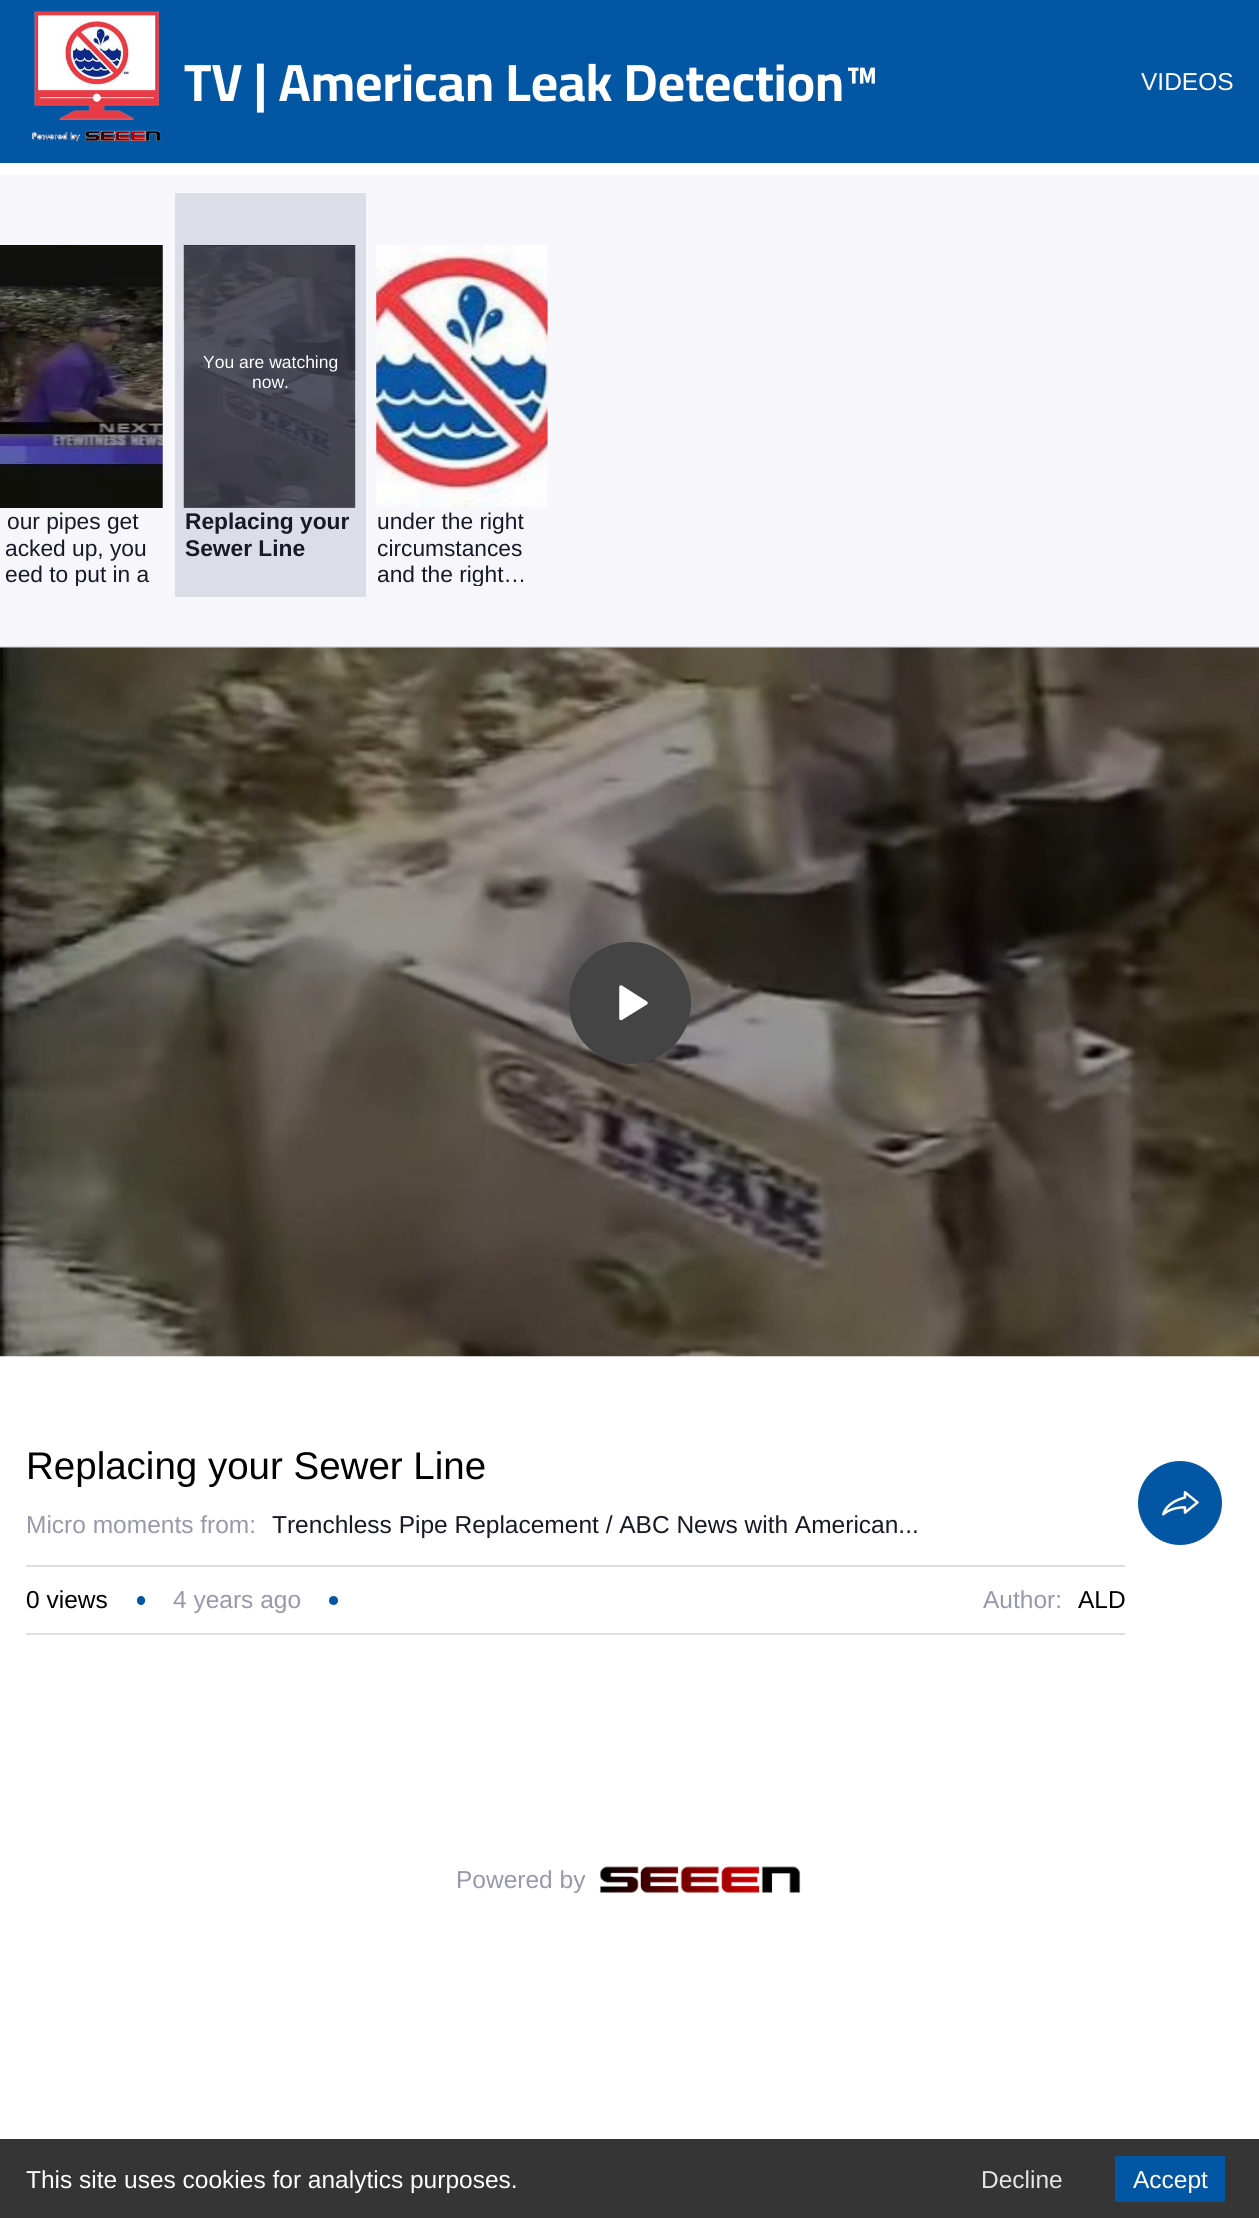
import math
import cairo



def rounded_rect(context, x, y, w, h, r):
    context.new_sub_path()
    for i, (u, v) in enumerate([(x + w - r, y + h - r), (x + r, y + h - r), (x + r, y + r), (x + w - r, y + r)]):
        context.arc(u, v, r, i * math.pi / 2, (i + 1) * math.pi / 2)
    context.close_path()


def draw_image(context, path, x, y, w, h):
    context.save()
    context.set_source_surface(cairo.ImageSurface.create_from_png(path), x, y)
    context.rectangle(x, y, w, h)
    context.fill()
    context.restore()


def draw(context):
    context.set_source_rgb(1, 1, 1)
    context.paint()
    context.set_source_rgb(3 / 255, 86 / 255, 163 / 255)
    context.rectangle(0, 0, 1259, 163)
    context.fill()
    draw_image(context, "images/1.png", 32, 11, 129, 130)
    context.set_source_rgb(246 / 255, 246 / 255, 251 / 255)
    context.rectangle(0, 175, 1259, 471)
    context.fill()
    context.set_source_rgb(219 / 255, 222 / 255, 230 / 255)
    context.rectangle(0, 646, 1259, 2)
    context.fill()
    draw_image(context, "images/2.png", 0, 245, 163, 263)
    context.rectangle(175, 193, 191, 404)
    context.fill()
    context.set_source_rgb(99 / 255, 101 / 255, 117 / 255)
    context.rectangle(184, 507, 171, 1)
    context.fill()
    draw_image(context, "images/3.png", 183, 245, 173, 263)
    draw_image(context, "images/4.png", 376, 245, 172, 263)
    draw_image(context, "images/5.png", 0, 647, 1259, 710)
    context.set_source_rgb(68 / 255, 68 / 255, 68 / 255)
    context.arc(630, 1003, 61, 0, 2 * math.pi)
    context.fill()
    context.set_source_rgb(1, 1, 1)
    context.new_path()
    context.move_to(621, 987)
    context.line_to(646, 1003)
    context.line_to(621, 1018.5)
    context.close_path()
    context.fill_preserve()
    context.set_line_width(3.5)
    context.set_line_cap(cairo.LineCap.ROUND)
    context.set_line_join(cairo.LineJoin.ROUND)
    context.stroke()
    context.set_source_rgb(219 / 255, 222 / 255, 230 / 255)
    context.rectangle(26, 1565, 1099, 2)
    context.fill()
    context.rectangle(26, 1633, 1099, 2)
    context.fill()
    context.set_source_rgb(3 / 255, 86 / 255, 163 / 255)
    rounded_rect(context, 137, 1596, 8, 9, 4)
    context.fill()
    context.arc(333.5, 1600.5, 4.5, 0, 2 * math.pi)
    context.fill()
    context.arc(1180, 1503, 42, 0, 2 * math.pi)
    context.fill()
    draw_image(context, "images/6.png", 1162, 1491, 37, 25)
    draw_image(context, "images/7.png", 599, 1866, 202, 28)
    context.set_source_rgb(53 / 255, 53 / 255, 53 / 255)
    context.rectangle(0, 2139, 1259, 79)
    context.fill()
    context.set_source_rgb(3 / 255, 86 / 255, 163 / 255)
    context.rectangle(1115, 2156, 110, 46)
    context.fill()
    context.select_font_face("Cairo", cairo.FontSlant.NORMAL, cairo.FontWeight.BOLD)
    context.set_font_size(52.5)
    context.set_source_rgb(1, 1, 1)
    context.move_to(184, 101)
    context.show_text("TV | American Leak Detection™")
    context.select_font_face("Liberation Sans")
    context.set_font_size(24.5)
    context.move_to(1141, 90)
    context.show_text("VIDEOS")
    context.set_font_size(22.75)
    context.set_source_rgb(24 / 255, 25 / 255, 39 / 255)
    context.move_to(7, 529)
    context.show_text("our pipes get")
    context.move_to(5, 556)
    context.show_text("acked up, you")
    context.save()
    context.rectangle(0, 508, 163, 78)
    context.clip()
    context.move_to(5, 582)
    context.show_text("eed to put in a")
    context.restore()
    context.set_font_size(17.5)
    context.set_source_rgb(1, 1, 1)
    context.move_to(203, 368)
    context.show_text("You are watching")
    context.move_to(252, 388)
    context.show_text("now.")
    context.select_font_face("Liberation Sans", cairo.FontSlant.NORMAL, cairo.FontWeight.BOLD)
    context.set_font_size(22.75)
    context.set_source_rgb(24 / 255, 25 / 255, 39 / 255)
    context.move_to(185, 529)
    context.show_text("Replacing your")
    context.move_to(185, 556)
    context.show_text("Sewer Line")
    context.select_font_face("Liberation Sans")
    context.move_to(377, 529)
    context.show_text("under the right")
    context.move_to(377, 556)
    context.show_text("circumstances")
    context.save()
    context.rectangle(376, 508, 172, 78)
    context.clip()
    context.move_to(377, 582)
    context.show_text("and the right…")
    context.restore()
    context.set_font_size(38.5)
    context.set_source_rgb(0, 0, 0)
    context.move_to(26, 1479)
    context.show_text("Replacing your Sewer Line")
    context.set_font_size(24.5)
    context.set_source_rgb(151 / 255, 152 / 255, 170 / 255)
    context.move_to(26, 1533)
    context.show_text("Micro moments from:")
    context.set_source_rgb(24 / 255, 25 / 255, 39 / 255)
    context.move_to(272, 1533)
    context.show_text("Trenchless Pipe Replacement / ABC News with American...")
    context.set_source_rgb(0, 0, 0)
    context.move_to(26, 1608)
    context.show_text("0 views")
    context.set_source_rgb(151 / 255, 152 / 255, 170 / 255)
    context.move_to(173, 1608)
    context.show_text("4 years ago")
    context.move_to(983, 1608)
    context.show_text("Author:")
    context.set_source_rgb(0, 0, 0)
    context.move_to(1078, 1608)
    context.show_text("ALD")
    context.set_source_rgb(151 / 255, 152 / 255, 170 / 255)
    context.move_to(456, 1888)
    context.show_text("Powered by")
    context.set_source_rgb(1, 1, 1)
    context.move_to(26, 2188)
    context.show_text("This site uses cookies for analytics purposes.")
    context.set_source_rgb(229 / 255, 229 / 255, 229 / 255)
    context.move_to(981, 2188)
    context.show_text("Decline")
    context.set_source_rgb(1, 1, 1)
    context.move_to(1133, 2188)
    context.show_text("Accept")


surface = cairo.ImageSurface(cairo.Format.RGB24, 1259, 2218)
context = cairo.Context(surface)
options = cairo.FontOptions()
options.set_hint_metrics(cairo.HintMetrics.OFF)
options.set_hint_style(cairo.HintStyle.NONE)
context.set_font_options(options)
context.set_miter_limit(4)
draw(context)
surface.write_to_png("out.png")
